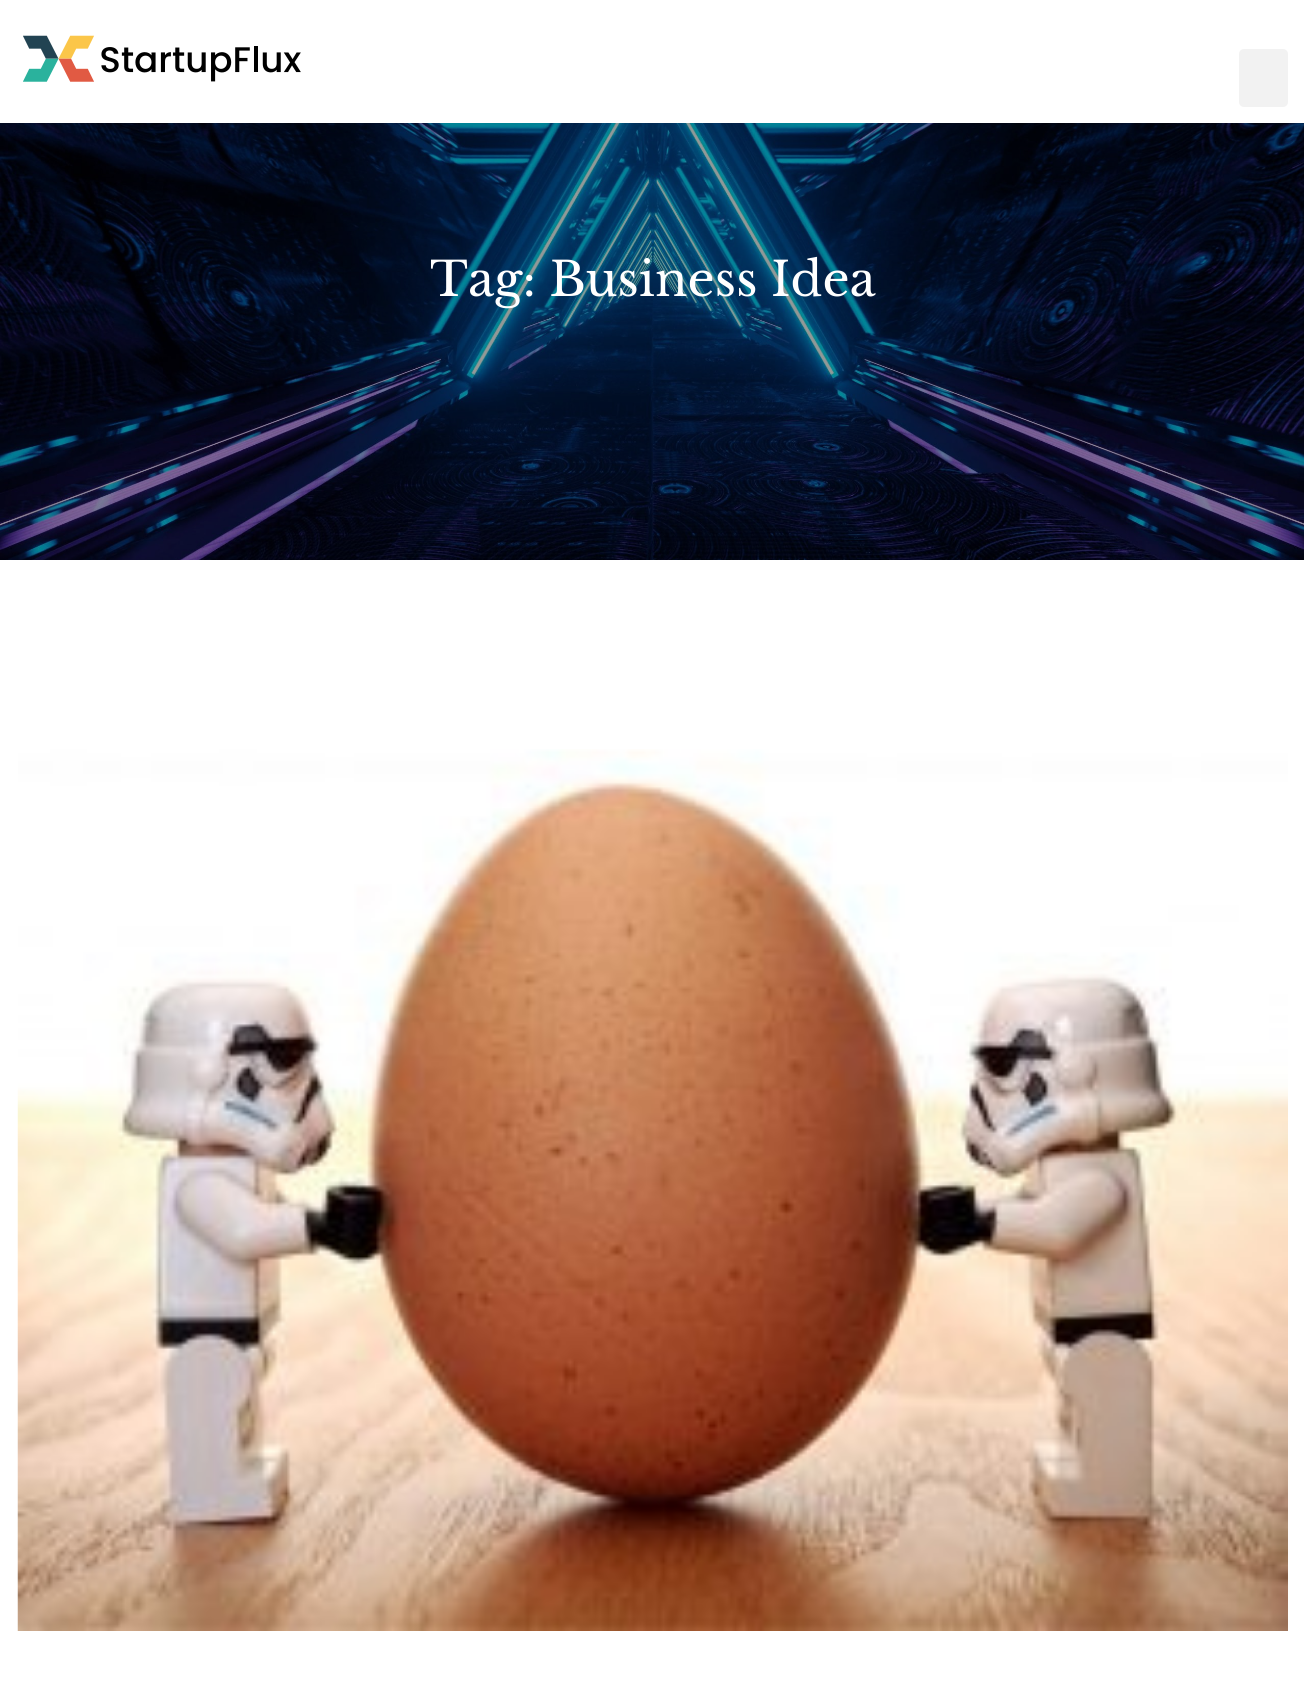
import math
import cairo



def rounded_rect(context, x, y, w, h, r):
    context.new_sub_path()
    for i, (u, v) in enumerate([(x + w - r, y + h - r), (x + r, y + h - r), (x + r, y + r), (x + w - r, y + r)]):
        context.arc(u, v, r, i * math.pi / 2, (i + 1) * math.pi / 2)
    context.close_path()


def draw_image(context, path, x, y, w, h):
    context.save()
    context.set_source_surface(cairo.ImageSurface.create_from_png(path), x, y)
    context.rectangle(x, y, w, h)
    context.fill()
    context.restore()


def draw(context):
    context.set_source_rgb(1, 1, 1)
    context.paint()
    draw_image(context, "images/1.png", 23, 35, 278, 47)
    context.set_source_rgb(242 / 255, 242 / 255, 242 / 255)
    rounded_rect(context, 1239, 49, 49, 58, 5)
    context.fill()
    draw_image(context, "images/2.png", 0, 123, 1304, 437)
    draw_image(context, "images/3.png", 17, 749, 1271, 882)
    context.select_font_face("Libre Baskerville")
    context.set_font_size(47.25)
    context.set_source_rgb(1, 1, 1)
    context.move_to(430, 296)
    context.show_text("Tag: Business Idea")


surface = cairo.ImageSurface(cairo.Format.RGB24, 1304, 1698)
context = cairo.Context(surface)
options = cairo.FontOptions()
options.set_hint_metrics(cairo.HintMetrics.OFF)
options.set_hint_style(cairo.HintStyle.NONE)
context.set_font_options(options)
context.set_miter_limit(4)
draw(context)
surface.write_to_png("out.png")
